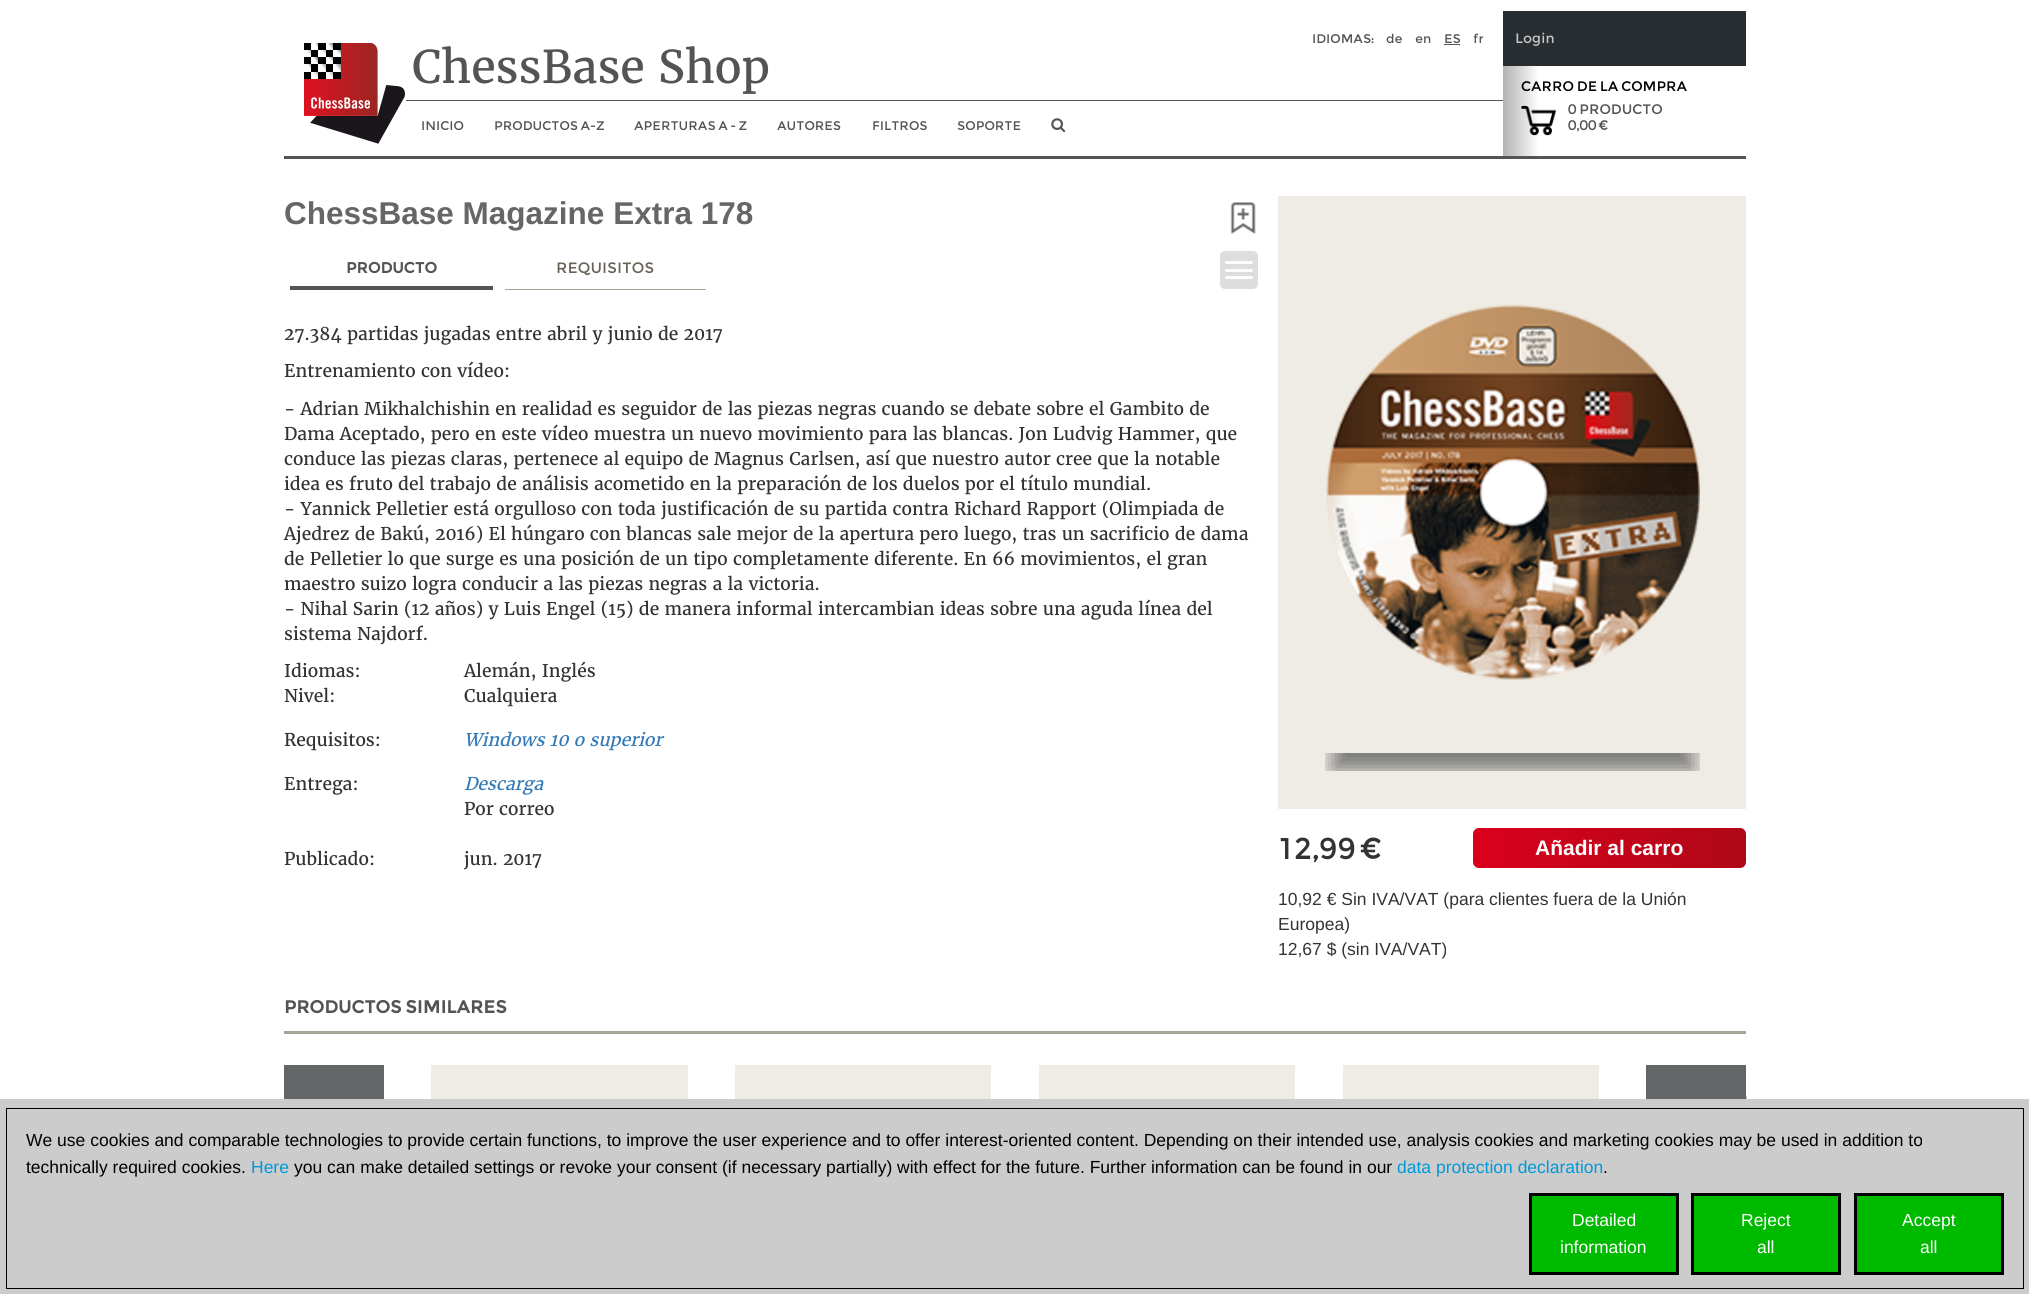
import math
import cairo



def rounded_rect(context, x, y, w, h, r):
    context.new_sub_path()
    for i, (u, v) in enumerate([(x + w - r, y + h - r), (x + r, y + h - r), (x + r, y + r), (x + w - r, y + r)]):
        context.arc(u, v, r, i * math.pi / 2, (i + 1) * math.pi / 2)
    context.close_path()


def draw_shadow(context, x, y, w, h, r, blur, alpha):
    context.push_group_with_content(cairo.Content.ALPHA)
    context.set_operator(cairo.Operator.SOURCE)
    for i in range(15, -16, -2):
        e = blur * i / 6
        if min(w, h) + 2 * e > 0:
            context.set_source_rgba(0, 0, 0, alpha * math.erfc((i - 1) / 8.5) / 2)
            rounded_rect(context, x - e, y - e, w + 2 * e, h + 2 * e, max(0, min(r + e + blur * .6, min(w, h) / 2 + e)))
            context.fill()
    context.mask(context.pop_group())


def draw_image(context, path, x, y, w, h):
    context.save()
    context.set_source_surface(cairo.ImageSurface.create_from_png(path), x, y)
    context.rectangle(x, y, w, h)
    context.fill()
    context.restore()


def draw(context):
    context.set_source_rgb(1, 1, 1)
    context.paint()
    context.set_source_rgb(84 / 255, 84 / 255, 83 / 255)
    context.rectangle(284, 156, 1462, 3)
    context.fill()
    draw_image(context, "images/1.png", 304, 43, 101, 101)
    context.rectangle(406, 100, 1097, 1)
    context.fill()
    context.rectangle(1444, 44, 16, 1)
    context.fill()
    draw_image(context, "images/2.png", 1051, 118, 15, 15)
    context.set_source_rgb(39 / 255, 45 / 255, 49 / 255)
    context.rectangle(1503, 11, 243, 55)
    context.fill()
    gradient = cairo.LinearGradient(1503, 111, 1746, 111)
    gradient.add_color_stop_rgba(0, 178 / 255, 178 / 255, 178 / 255, 1)
    gradient.add_color_stop_rgba(0.15, 1, 1, 1, 1)
    gradient.add_color_stop_rgba(0.85, 1, 1, 1, 1)
    context.set_source(gradient)
    context.rectangle(1503, 66, 35, 90)
    context.fill()
    draw_image(context, "images/3.png", 1521, 105, 36, 31)
    context.set_source_rgb(204 / 255, 204 / 255, 204 / 255)
    context.rectangle(0, 1099, 2029, 195)
    context.fill()
    context.rectangle(6.5, 1108.5, 2017, 180)
    context.set_source_rgb(0, 0, 0)
    context.set_line_width(1)
    context.stroke()
    context.set_source_rgb(0, 186 / 255, 0)
    context.rectangle(1530.5, 1194.5, 147, 79)
    context.fill_preserve()
    context.set_source_rgb(0, 0, 0)
    context.set_line_width(3)
    context.stroke()
    context.set_source_rgb(0, 186 / 255, 0)
    context.rectangle(1692.5, 1194.5, 147, 79)
    context.fill_preserve()
    context.set_source_rgb(0, 0, 0)
    context.stroke()
    context.set_source_rgb(0, 186 / 255, 0)
    context.rectangle(1855.5, 1194.5, 147, 79)
    context.fill_preserve()
    context.set_source_rgb(0, 0, 0)
    context.stroke()
    draw_image(context, "images/4.png", 1230, 202, 26, 32)
    context.set_source_rgb(84 / 255, 84 / 255, 83 / 255)
    context.rectangle(290, 286, 203, 4)
    context.fill()
    context.set_source_rgb(167 / 255, 163 / 255, 150 / 255)
    context.rectangle(505, 289, 201, 1)
    context.fill()
    context.set_source_rgb(221 / 255, 221 / 255, 221 / 255)
    rounded_rect(context, 1219.5, 250.5, 39, 39, 5.5)
    context.fill_preserve()
    context.set_source_rgb(1, 1, 1)
    context.set_line_width(1)
    context.stroke()
    rounded_rect(context, 1225, 261, 28, 3, 1.5)
    context.fill()
    rounded_rect(context, 1225, 269, 28, 3, 1.5)
    context.fill()
    rounded_rect(context, 1225, 276, 28, 3, 1.5)
    context.fill()
    context.set_source_rgb(239 / 255, 236 / 255, 229 / 255)
    context.rectangle(1278, 196, 468, 613)
    context.fill()
    context.save()
    context.rectangle(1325, 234, 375, 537)
    context.clip()
    context.set_fill_rule(cairo.FillRule.EVEN_ODD)
    context.new_path()
    context.move_to(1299, 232)
    context.line_to(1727, 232)
    context.line_to(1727, 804)
    context.line_to(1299, 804)
    context.close_path()
    context.move_to(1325, 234)
    context.line_to(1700, 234)
    context.line_to(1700, 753)
    context.line_to(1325, 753)
    context.close_path()
    context.clip()
    context.set_source_rgb(119 / 255, 119 / 255, 119 / 255)
    draw_shadow(context, 1333, 266, 360, 504, 0, 11, 1)
    context.restore()
    draw_image(context, "images/5.png", 1326, 304, 374, 376)
    gradient = cairo.LinearGradient(1473, 848, 1746, 848)
    gradient.add_color_stop_rgba(0, 218 / 255, 0, 28 / 255, 1)
    gradient.add_color_stop_rgba(1, 175 / 255, 8 / 255, 24 / 255, 1)
    context.set_source(gradient)
    rounded_rect(context, 1473, 828, 273, 40, 6)
    context.fill()
    context.set_source_rgb(167 / 255, 163 / 255, 150 / 255)
    context.rectangle(284, 1031, 1462, 3)
    context.fill()
    context.set_source_rgb(99 / 255, 102 / 255, 103 / 255)
    context.rectangle(284, 1065, 100, 34)
    context.fill()
    context.set_source_rgb(239 / 255, 236 / 255, 229 / 255)
    context.rectangle(431, 1065, 257, 34)
    context.fill()
    context.rectangle(735, 1065, 256, 34)
    context.fill()
    context.rectangle(1039, 1065, 256, 34)
    context.fill()
    context.rectangle(1343, 1065, 256, 34)
    context.fill()
    context.set_source_rgb(99 / 255, 102 / 255, 103 / 255)
    context.rectangle(1646, 1065, 100, 34)
    context.fill()
    draw_image(context, "images/6.png", 1746, 1096, 1, 3)
    context.select_font_face("Montserrat")
    context.set_font_size(12.5)
    context.set_source_rgb(84 / 255, 84 / 255, 83 / 255)
    context.move_to(1312, 43)
    context.show_text("IDIOMAS:")
    context.move_to(1386, 43)
    context.show_text("de")
    context.move_to(1415, 43)
    context.show_text("en")
    context.move_to(1444, 43)
    context.show_text("ES")
    context.move_to(1473, 43)
    context.show_text("fr")
    context.select_font_face("Merriweather")
    context.set_font_size(45)
    context.move_to(412, 83)
    context.show_text("ChessBase Shop")
    context.select_font_face("Montserrat")
    context.set_font_size(12.5)
    context.move_to(421, 130)
    context.show_text("INICIO")
    context.move_to(494, 130)
    context.show_text("PRODUCTOS A-Z")
    context.move_to(634, 130)
    context.show_text("APERTURAS A - Z")
    context.move_to(777, 130)
    context.show_text("AUTORES")
    context.move_to(872, 130)
    context.show_text("FILTROS")
    context.move_to(957, 130)
    context.show_text("SOPORTE")
    context.set_font_size(13.75)
    context.set_source_rgb(198 / 255, 199 / 255, 200 / 255)
    context.move_to(1515, 43)
    context.show_text("Login")
    context.set_source_rgb(0, 0, 0)
    context.move_to(1521, 91)
    context.show_text("CARRO DE LA COMPRA")
    context.set_source_rgb(84 / 255, 84 / 255, 83 / 255)
    context.move_to(1568, 114)
    context.show_text("0 PRODUCTO")
    context.move_to(1568, 130)
    context.show_text("0,00 €")
    context.select_font_face("Liberation Sans")
    context.set_font_size(17.5)
    context.set_source_rgb(0, 0, 0)
    context.move_to(26, 1146)
    context.show_text("We use cookies and comparable technologies to provide certain functions, to improve the user experience and to offer interest-oriented content. Depending on their intended use, analysis cookies and marketing cookies may be used in addition to")
    context.move_to(26, 1173)
    context.show_text("technically required cookies.")
    context.set_source_rgb(0, 153 / 255, 218 / 255)
    context.move_to(251, 1173)
    context.show_text("Here")
    context.set_source_rgb(0, 0, 0)
    context.move_to(294, 1173)
    context.show_text("you can make detailed settings or revoke your consent (if necessary partially) with effect for the future. Further information can be found in our")
    context.set_source_rgb(0, 153 / 255, 218 / 255)
    context.move_to(1397, 1173)
    context.show_text("data protection declaration")
    context.set_source_rgb(0, 0, 0)
    context.move_to(1603, 1173)
    context.show_text(".")
    context.set_source_rgb(1, 1, 1)
    context.move_to(1572, 1226)
    context.show_text("Detailed")
    context.move_to(1560, 1253)
    context.show_text("information")
    context.move_to(1741, 1226)
    context.show_text("Reject")
    context.move_to(1757, 1253)
    context.show_text("all")
    context.move_to(1902, 1226)
    context.show_text("Accept")
    context.move_to(1920, 1253)
    context.show_text("all")
    context.select_font_face("Liberation Sans", cairo.FontSlant.NORMAL, cairo.FontWeight.BOLD)
    context.set_font_size(31.5)
    context.set_source_rgb(102 / 255, 102 / 255, 102 / 255)
    context.move_to(284, 224)
    context.show_text("ChessBase Magazine Extra 178")
    context.select_font_face("Montserrat", cairo.FontSlant.NORMAL, cairo.FontWeight.BOLD)
    context.set_font_size(15)
    context.set_source_rgb(84 / 255, 84 / 255, 83 / 255)
    context.move_to(346, 273)
    context.show_text("PRODUCTO")
    context.select_font_face("Montserrat")
    context.set_source_rgb(103 / 255, 99 / 255, 86 / 255)
    context.move_to(556, 273)
    context.show_text("REQUISITOS")
    context.select_font_face("Merriweather")
    context.set_font_size(17.5)
    context.set_source_rgb(51 / 255, 51 / 255, 51 / 255)
    context.move_to(284, 340)
    context.show_text("27.384 partidas jugadas entre abril y junio de 2017")
    context.move_to(284, 377)
    context.show_text("Entrenamiento con vídeo:")
    context.move_to(284, 415)
    context.show_text("- Adrian Mikhalchishin en realidad es seguidor de las piezas negras cuando se debate sobre el Gambito de")
    context.move_to(284, 440)
    context.show_text("Dama Aceptado, pero en este vídeo muestra un nuevo movimiento para las blancas. Jon Ludvig Hammer, que")
    context.move_to(284, 465)
    context.show_text("conduce las piezas claras, pertenece al equipo de Magnus Carlsen, así que nuestro autor cree que la notable")
    context.move_to(284, 490)
    context.show_text("idea es fruto del trabajo de análisis acometido en la preparación de los duelos por el título mundial.")
    context.move_to(284, 515)
    context.show_text("- Yannick Pelletier está orgulloso con toda justificación de su partida contra Richard Rapport (Olimpiada de")
    context.move_to(284, 540)
    context.show_text("Ajedrez de Bakú, 2016) El húngaro con blancas sale mejor de la apertura pero luego, tras un sacrificio de dama")
    context.move_to(284, 565)
    context.show_text("de Pelletier lo que surge es una posición de un tipo completamente diferente. En 66 movimientos, el gran")
    context.move_to(284, 590)
    context.show_text("maestro suizo logra conducir a las piezas negras a la victoria.")
    context.move_to(284, 615)
    context.show_text("- Nihal Sarin (12 años) y Luis Engel (15) de manera informal intercambian ideas sobre una aguda línea del")
    context.move_to(284, 640)
    context.show_text("sistema Najdorf.")
    context.move_to(284, 677)
    context.show_text("Idiomas:")
    context.move_to(464, 677)
    context.show_text("Alemán, Inglés")
    context.move_to(284, 702)
    context.show_text("Nivel:")
    context.move_to(464, 702)
    context.show_text("Cualquiera")
    context.move_to(284, 746)
    context.show_text("Requisitos:")
    context.select_font_face("Merriweather", cairo.FontSlant.ITALIC)
    context.set_source_rgb(51 / 255, 122 / 255, 183 / 255)
    context.move_to(464, 746)
    context.show_text("Windows 10 o superior")
    context.select_font_face("Merriweather")
    context.set_source_rgb(51 / 255, 51 / 255, 51 / 255)
    context.move_to(284, 790)
    context.show_text("Entrega:")
    context.select_font_face("Merriweather", cairo.FontSlant.ITALIC)
    context.set_source_rgb(51 / 255, 122 / 255, 183 / 255)
    context.move_to(464, 790)
    context.show_text("Descarga")
    context.select_font_face("Merriweather")
    context.set_source_rgb(51 / 255, 51 / 255, 51 / 255)
    context.move_to(464, 815)
    context.show_text("Por correo")
    context.move_to(284, 865)
    context.show_text("Publicado:")
    context.move_to(464, 865)
    context.show_text("jun. 2017")
    context.select_font_face("Montserrat")
    context.set_font_size(30)
    context.move_to(1278, 859)
    context.show_text("12,99 €")
    context.select_font_face("Liberation Sans", cairo.FontSlant.NORMAL, cairo.FontWeight.BOLD)
    context.set_font_size(21)
    context.set_source_rgb(1, 1, 1)
    context.move_to(1535, 855)
    context.show_text("Añadir al carro")
    context.select_font_face("Liberation Sans")
    context.set_font_size(17.5)
    context.set_source_rgb(51 / 255, 51 / 255, 51 / 255)
    context.move_to(1278, 905)
    context.show_text("10,92 € Sin IVA/VAT (para clientes fuera de la Unión")
    context.move_to(1278, 930)
    context.show_text("Europea)")
    context.move_to(1278, 955)
    context.show_text("12,67 $ (sin IVA/VAT)")
    context.select_font_face("Montserrat", cairo.FontSlant.NORMAL, cairo.FontWeight.BOLD)
    context.set_source_rgb(84 / 255, 84 / 255, 83 / 255)
    context.move_to(284, 1013)
    context.show_text("PRODUCTOS SIMILARES")


surface = cairo.ImageSurface(cairo.Format.RGB24, 2029, 1294)
context = cairo.Context(surface)
options = cairo.FontOptions()
options.set_hint_metrics(cairo.HintMetrics.OFF)
options.set_hint_style(cairo.HintStyle.NONE)
context.set_font_options(options)
context.set_miter_limit(4)
draw(context)
surface.write_to_png("out.png")
